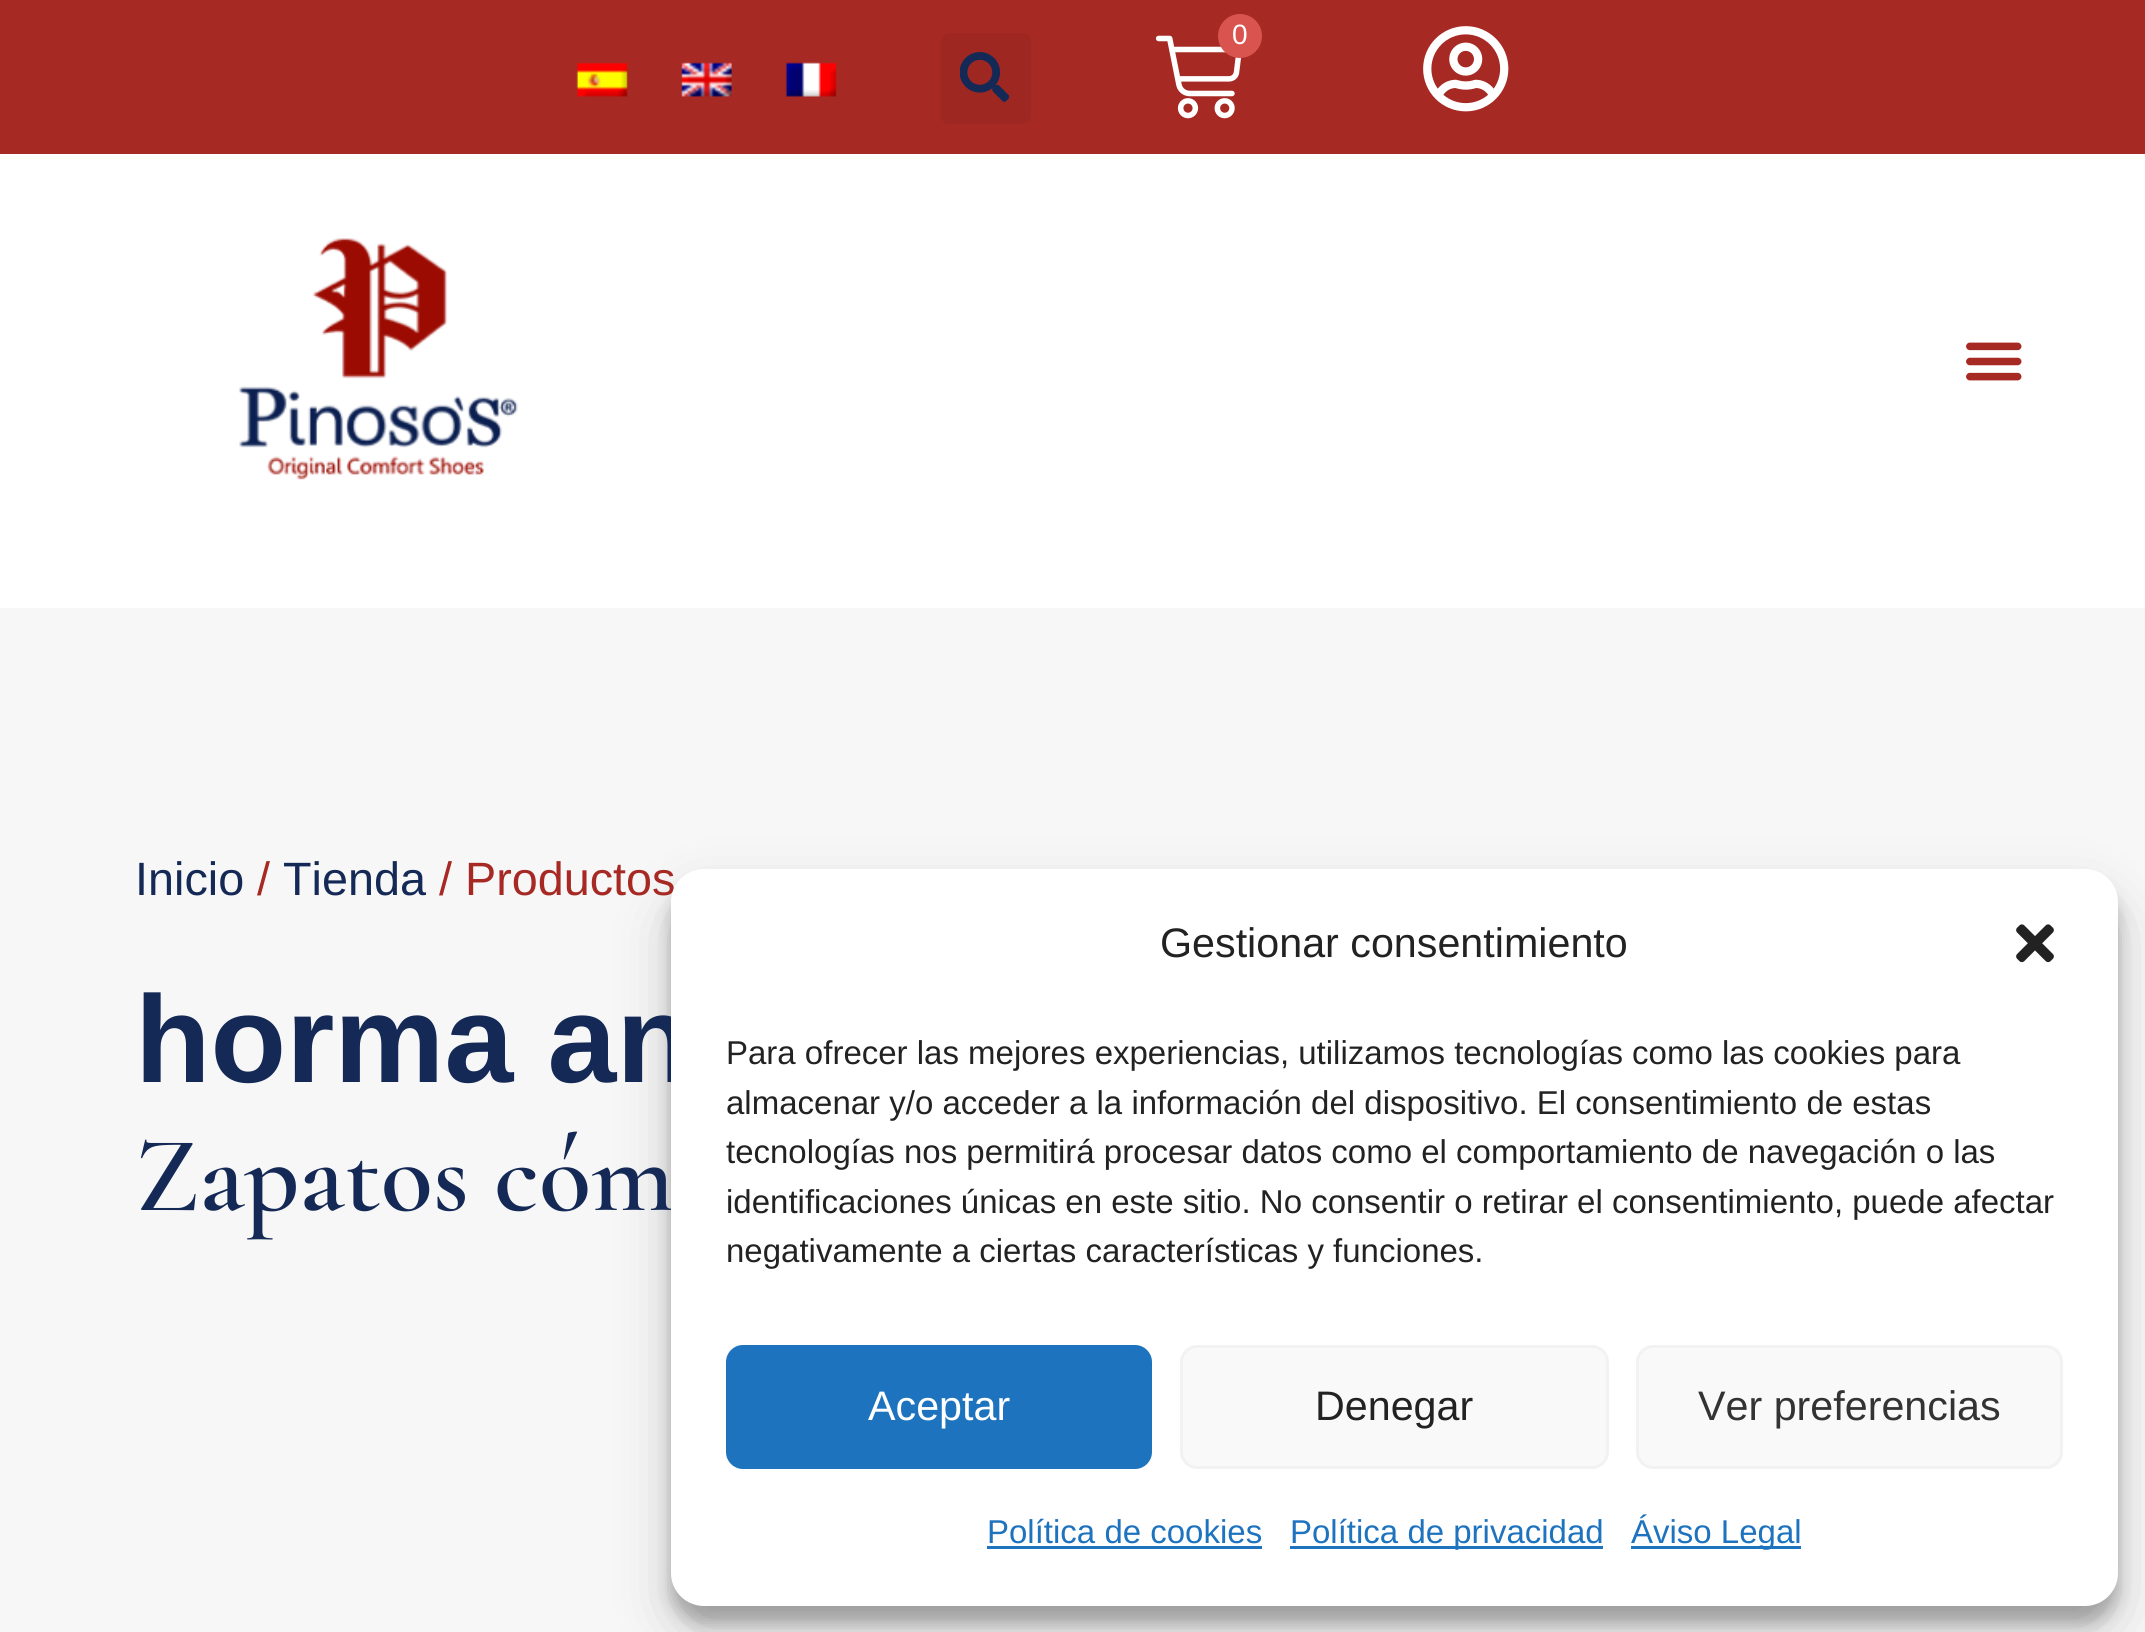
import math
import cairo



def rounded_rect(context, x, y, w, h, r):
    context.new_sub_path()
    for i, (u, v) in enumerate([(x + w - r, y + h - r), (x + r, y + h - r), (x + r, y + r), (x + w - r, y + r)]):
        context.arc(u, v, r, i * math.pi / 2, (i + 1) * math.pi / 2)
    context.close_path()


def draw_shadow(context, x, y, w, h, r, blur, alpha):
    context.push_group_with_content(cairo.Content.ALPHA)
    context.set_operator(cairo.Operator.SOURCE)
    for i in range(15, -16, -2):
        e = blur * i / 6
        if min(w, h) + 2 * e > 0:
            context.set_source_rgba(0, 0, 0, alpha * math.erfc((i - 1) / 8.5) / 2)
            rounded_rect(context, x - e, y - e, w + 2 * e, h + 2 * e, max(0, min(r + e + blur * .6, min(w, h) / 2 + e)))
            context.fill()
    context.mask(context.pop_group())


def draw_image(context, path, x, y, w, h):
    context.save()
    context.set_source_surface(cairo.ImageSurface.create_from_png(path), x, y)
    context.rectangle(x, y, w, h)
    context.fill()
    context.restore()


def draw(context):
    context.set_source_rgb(1, 1, 1)
    context.paint()
    context.set_source_rgb(167 / 255, 41 / 255, 36 / 255)
    context.rectangle(0, 0, 2145, 154)
    context.fill()
    draw_image(context, "images/1.png", 576, 62, 52, 35)
    draw_image(context, "images/2.png", 681, 62, 51, 35)
    draw_image(context, "images/3.png", 785, 62, 52, 35)
    context.set_source_rgb(159 / 255, 39 / 255, 34 / 255)
    rounded_rect(context, 941, 33, 90, 91, 8)
    context.fill()
    draw_image(context, "images/4.png", 960, 52, 49, 50)
    draw_image(context, "images/5.png", 1155, 35, 87, 84)
    context.set_source_rgb(217 / 255, 83 / 255, 79 / 255)
    context.arc(1240, 36, 22, 0, 2 * math.pi)
    context.fill()
    draw_image(context, "images/6.png", 1423, 26, 86, 86)
    draw_image(context, "images/7.png", 239, 238, 279, 242)
    draw_image(context, "images/8.png", 1966, 342, 56, 39)
    context.set_source_rgb(247 / 255, 247 / 255, 247 / 255)
    context.rectangle(0, 608, 2145, 1024)
    context.fill()
    context.set_source_rgb(0, 0, 0)
    draw_shadow(context, 671, 886, 1447, 737, 33, 8, 0.23)
    draw_shadow(context, 671, 897, 1447, 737, 33, 27.5, 0.19)
    context.select_font_face("Liberation Sans")
    context.set_font_size(28)
    context.set_source_rgb(1, 1, 1)
    context.move_to(1232, 44)
    context.show_text("0")
    context.set_font_size(46.75)
    context.set_source_rgb(21 / 255, 41 / 255, 86 / 255)
    context.move_to(135, 895)
    context.show_text("Inicio")
    context.set_source_rgb(167 / 255, 41 / 255, 36 / 255)
    context.move_to(257, 895)
    context.show_text("/")
    context.set_source_rgb(21 / 255, 41 / 255, 86 / 255)
    context.move_to(283, 895)
    context.show_text("Tienda")
    context.set_source_rgb(167 / 255, 41 / 255, 36 / 255)
    context.move_to(439, 895)
    context.show_text("/ Productos")
    context.select_font_face("Liberation Sans", cairo.FontSlant.NORMAL, cairo.FontWeight.BOLD)
    context.set_font_size(123.75)
    context.set_source_rgb(21 / 255, 41 / 255, 86 / 255)
    context.move_to(135, 1082)
    context.show_text("horma an")
    context.select_font_face("Cormorant Garamond SemiBold")
    context.set_font_size(107.25)
    context.move_to(135, 1210)
    context.show_text("Zapatos cóm")
    context.set_source_rgb(1, 1, 1)
    rounded_rect(context, 671, 869, 1447, 737, 33)
    context.fill()
    context.select_font_face("Liberation Sans")
    context.set_font_size(41.25)
    context.set_source_rgb(34 / 255, 34 / 255, 34 / 255)
    context.move_to(1160, 957)
    context.show_text("Gestionar consentimiento")
    draw_image(context, "images/9.png", 2016, 924, 38, 39)
    context.set_font_size(33)
    context.move_to(726, 1064)
    context.show_text("Para ofrecer las mejores experiencias, utilizamos tecnologías como las cookies para")
    context.move_to(726, 1114)
    context.show_text("almacenar y/o acceder a la información del dispositivo. El consentimiento de estas")
    context.move_to(726, 1163)
    context.show_text("tecnologías nos permitirá procesar datos como el comportamiento de navegación o las")
    context.move_to(726, 1213)
    context.show_text("identificaciones únicas en este sitio. No consentir o retirar el consentimiento, puede afectar")
    context.move_to(726, 1262)
    context.show_text("negativamente a ciertas características y funciones.")
    context.set_source_rgb(30 / 255, 115 / 255, 190 / 255)
    rounded_rect(context, 727.5, 1346.5, 423, 121, 15.5)
    context.fill_preserve()
    context.set_line_width(3)
    context.stroke()
    context.set_font_size(41.25)
    context.set_source_rgb(1, 1, 1)
    context.move_to(868, 1420)
    context.show_text("Aceptar")
    context.set_source_rgb(249 / 255, 249 / 255, 249 / 255)
    rounded_rect(context, 1181.5, 1346.5, 426, 121, 15.5)
    context.fill_preserve()
    context.set_source_rgb(242 / 255, 242 / 255, 242 / 255)
    context.stroke()
    context.set_source_rgb(34 / 255, 34 / 255, 34 / 255)
    context.move_to(1315, 1420)
    context.show_text("Denegar")
    context.set_source_rgb(249 / 255, 249 / 255, 249 / 255)
    rounded_rect(context, 1637.5, 1346.5, 424, 121, 15.5)
    context.fill_preserve()
    context.set_source_rgb(242 / 255, 242 / 255, 242 / 255)
    context.stroke()
    context.set_source_rgb(51 / 255, 51 / 255, 51 / 255)
    context.move_to(1698, 1420)
    context.show_text("Ver preferencias")
    context.set_font_size(33)
    context.set_source_rgb(30 / 255, 115 / 255, 190 / 255)
    context.move_to(987, 1543)
    context.show_text("Política de cookies")
    context.rectangle(987, 1546, 275, 3)
    context.fill()
    context.rectangle(1290, 1546, 313, 3)
    context.fill()
    context.move_to(1290, 1543)
    context.show_text("Política de privacidad")
    context.rectangle(1631, 1546, 170, 3)
    context.fill()
    context.move_to(1631, 1543)
    context.show_text("Áviso Legal")


surface = cairo.ImageSurface(cairo.Format.RGB24, 2145, 1632)
context = cairo.Context(surface)
options = cairo.FontOptions()
options.set_hint_metrics(cairo.HintMetrics.OFF)
options.set_hint_style(cairo.HintStyle.NONE)
context.set_font_options(options)
context.set_miter_limit(4)
draw(context)
surface.write_to_png("out.png")
